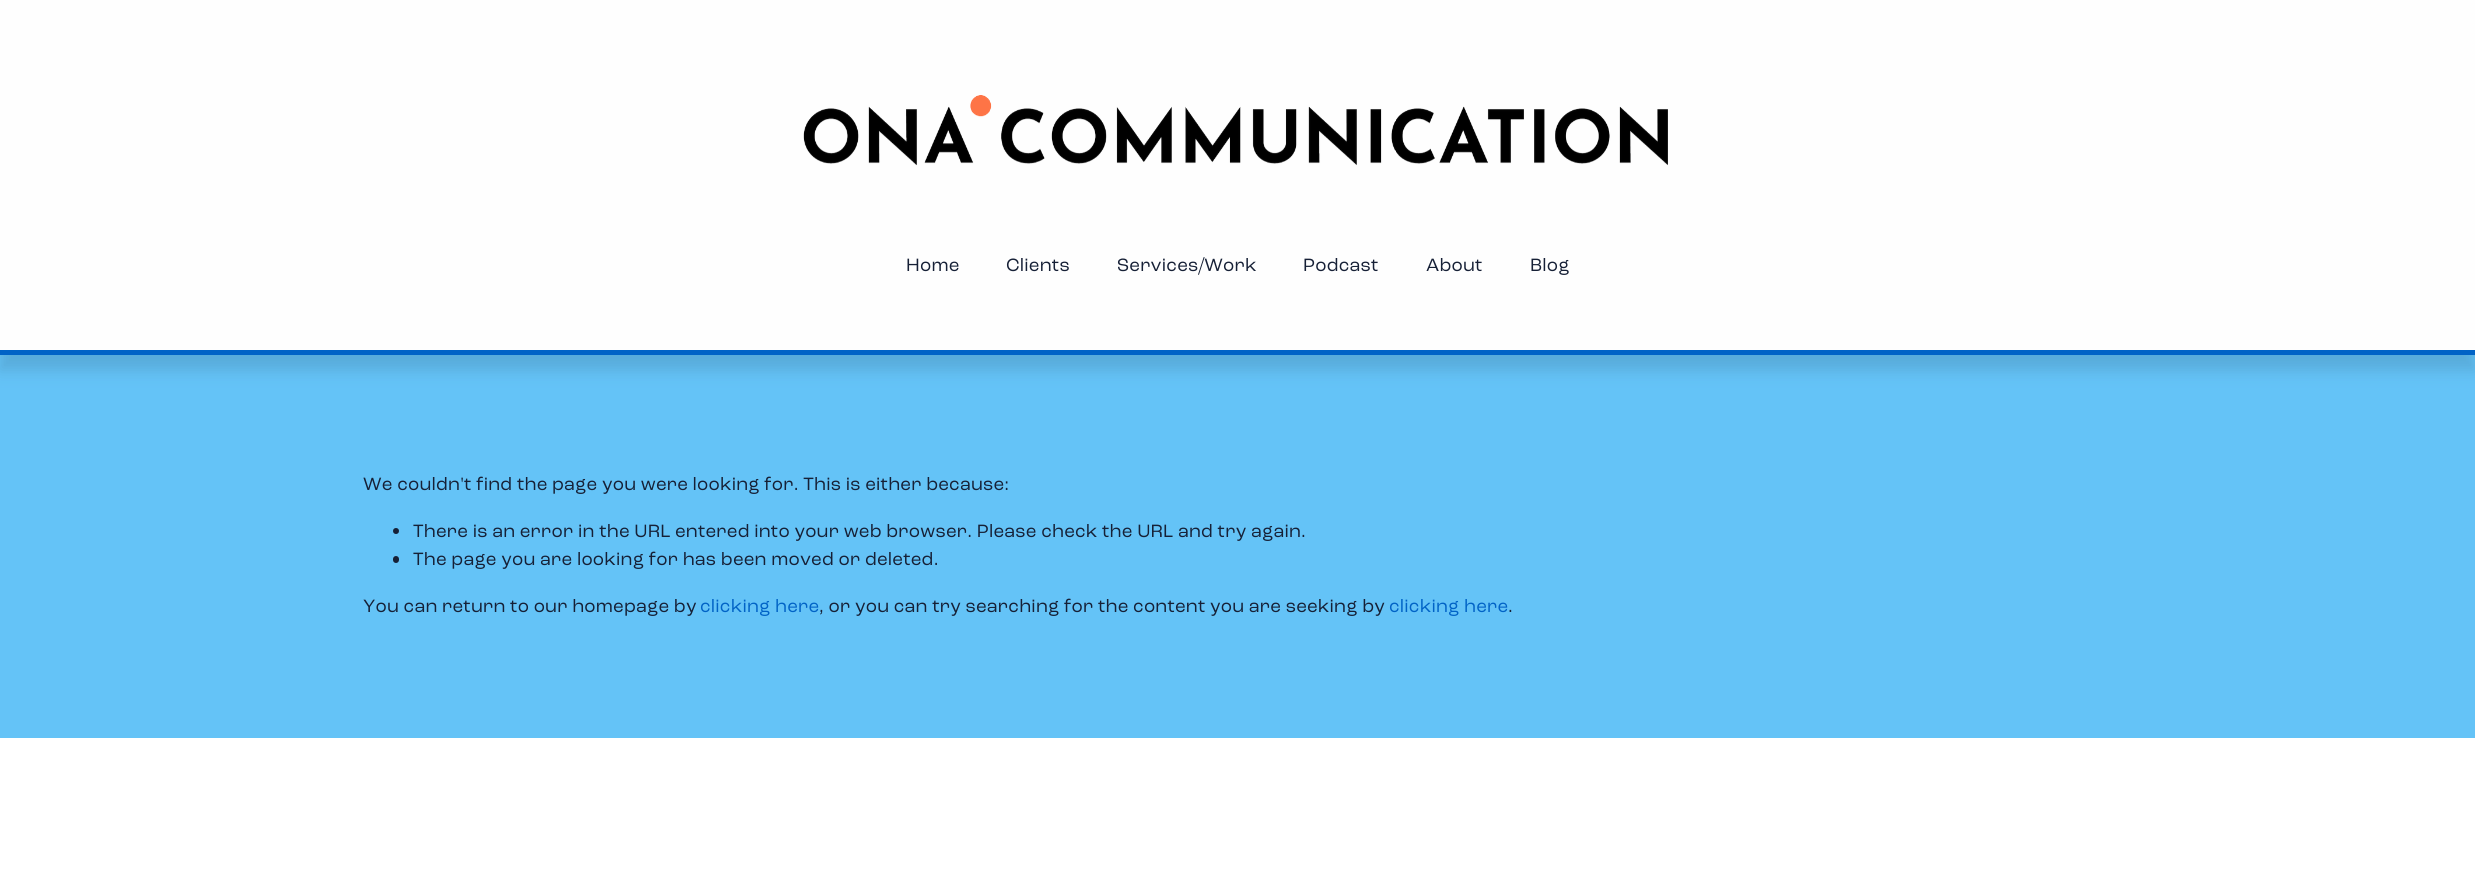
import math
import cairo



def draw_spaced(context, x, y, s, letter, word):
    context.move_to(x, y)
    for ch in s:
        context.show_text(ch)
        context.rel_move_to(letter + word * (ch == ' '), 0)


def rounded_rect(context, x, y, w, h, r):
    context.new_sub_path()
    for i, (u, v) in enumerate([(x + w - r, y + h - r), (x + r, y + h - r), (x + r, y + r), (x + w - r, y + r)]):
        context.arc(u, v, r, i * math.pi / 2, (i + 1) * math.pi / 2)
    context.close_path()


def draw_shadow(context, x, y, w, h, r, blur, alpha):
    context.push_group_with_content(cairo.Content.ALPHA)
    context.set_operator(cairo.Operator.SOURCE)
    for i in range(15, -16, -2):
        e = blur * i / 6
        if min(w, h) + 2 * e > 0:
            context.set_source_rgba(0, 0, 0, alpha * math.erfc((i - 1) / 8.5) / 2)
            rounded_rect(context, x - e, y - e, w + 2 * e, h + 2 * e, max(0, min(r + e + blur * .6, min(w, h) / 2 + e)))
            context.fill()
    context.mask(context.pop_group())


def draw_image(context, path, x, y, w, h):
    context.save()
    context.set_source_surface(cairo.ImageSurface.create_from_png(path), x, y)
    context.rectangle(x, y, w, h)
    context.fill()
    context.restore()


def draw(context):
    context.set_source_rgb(100 / 255, 195 / 255, 247 / 255)
    context.paint()
    context.set_source_rgb(88 / 255, 171 / 255, 218 / 255)
    draw_shadow(context, 0, 15, 2475, 355, 0, 7.5, 1)
    context.set_source_rgb(254 / 255, 254 / 255, 254 / 255)
    context.rectangle(0, 0, 2475, 350)
    context.fill()
    draw_image(context, "images/1.png", 803, 95, 865, 71)
    context.set_source_rgb(1 / 255, 99 / 255, 198 / 255)
    context.rectangle(0, 350, 2475, 5)
    context.fill()
    context.set_source_rgb(22 / 255, 32 / 255, 54 / 255)
    context.arc(396, 531, 3, 0, 2 * math.pi)
    context.fill()
    rounded_rect(context, 393, 556, 6, 7, 3)
    context.fill()
    context.set_source_rgb(1, 1, 1)
    context.rectangle(0, 738, 2475, 140)
    context.fill()
    context.select_font_face("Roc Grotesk")
    context.set_font_size(18.75)
    context.set_source_rgb(22 / 255, 32 / 255, 54 / 255)
    draw_spaced(context, 906, 271, "Home", 0.2, 0)
    draw_spaced(context, 1006, 271, "Clients", 0.2, 0)
    draw_spaced(context, 1117, 271, "Services/Work", 0.2, 0)
    draw_spaced(context, 1303, 271, "Podcast", 0.2, 0)
    draw_spaced(context, 1426, 271, "About", 0.2, 0)
    draw_spaced(context, 1530, 271, "Blog", 0.2, 0)
    draw_spaced(context, 363, 490, "We couldn't find the page you were looking for. This is either because:", 0.2, 0)
    draw_spaced(context, 413, 537, "There is an error in the URL entered into your web browser. Please check the URL and try again.", 0.2, 0)
    draw_spaced(context, 413, 565, "The page you are looking for has been moved or deleted.", 0.2, 0)
    draw_spaced(context, 363, 612, "You can return to our homepage by", 0.2, 0)
    context.set_source_rgb(1 / 255, 99 / 255, 198 / 255)
    draw_spaced(context, 700, 612, "clicking here", 0.2, 0)
    context.set_source_rgb(22 / 255, 32 / 255, 54 / 255)
    draw_spaced(context, 819, 612, ", or you can try searching for the content you are seeking by", 0.2, 0)
    context.set_source_rgb(1 / 255, 99 / 255, 198 / 255)
    draw_spaced(context, 1389, 612, "clicking here", 0.2, 0)
    context.set_source_rgb(22 / 255, 32 / 255, 54 / 255)
    draw_spaced(context, 1508, 612, ".", 0.2, 0)


surface = cairo.ImageSurface(cairo.Format.RGB24, 2475, 878)
context = cairo.Context(surface)
options = cairo.FontOptions()
options.set_hint_metrics(cairo.HintMetrics.OFF)
options.set_hint_style(cairo.HintStyle.NONE)
context.set_font_options(options)
context.set_miter_limit(4)
draw(context)
surface.write_to_png("out.png")
